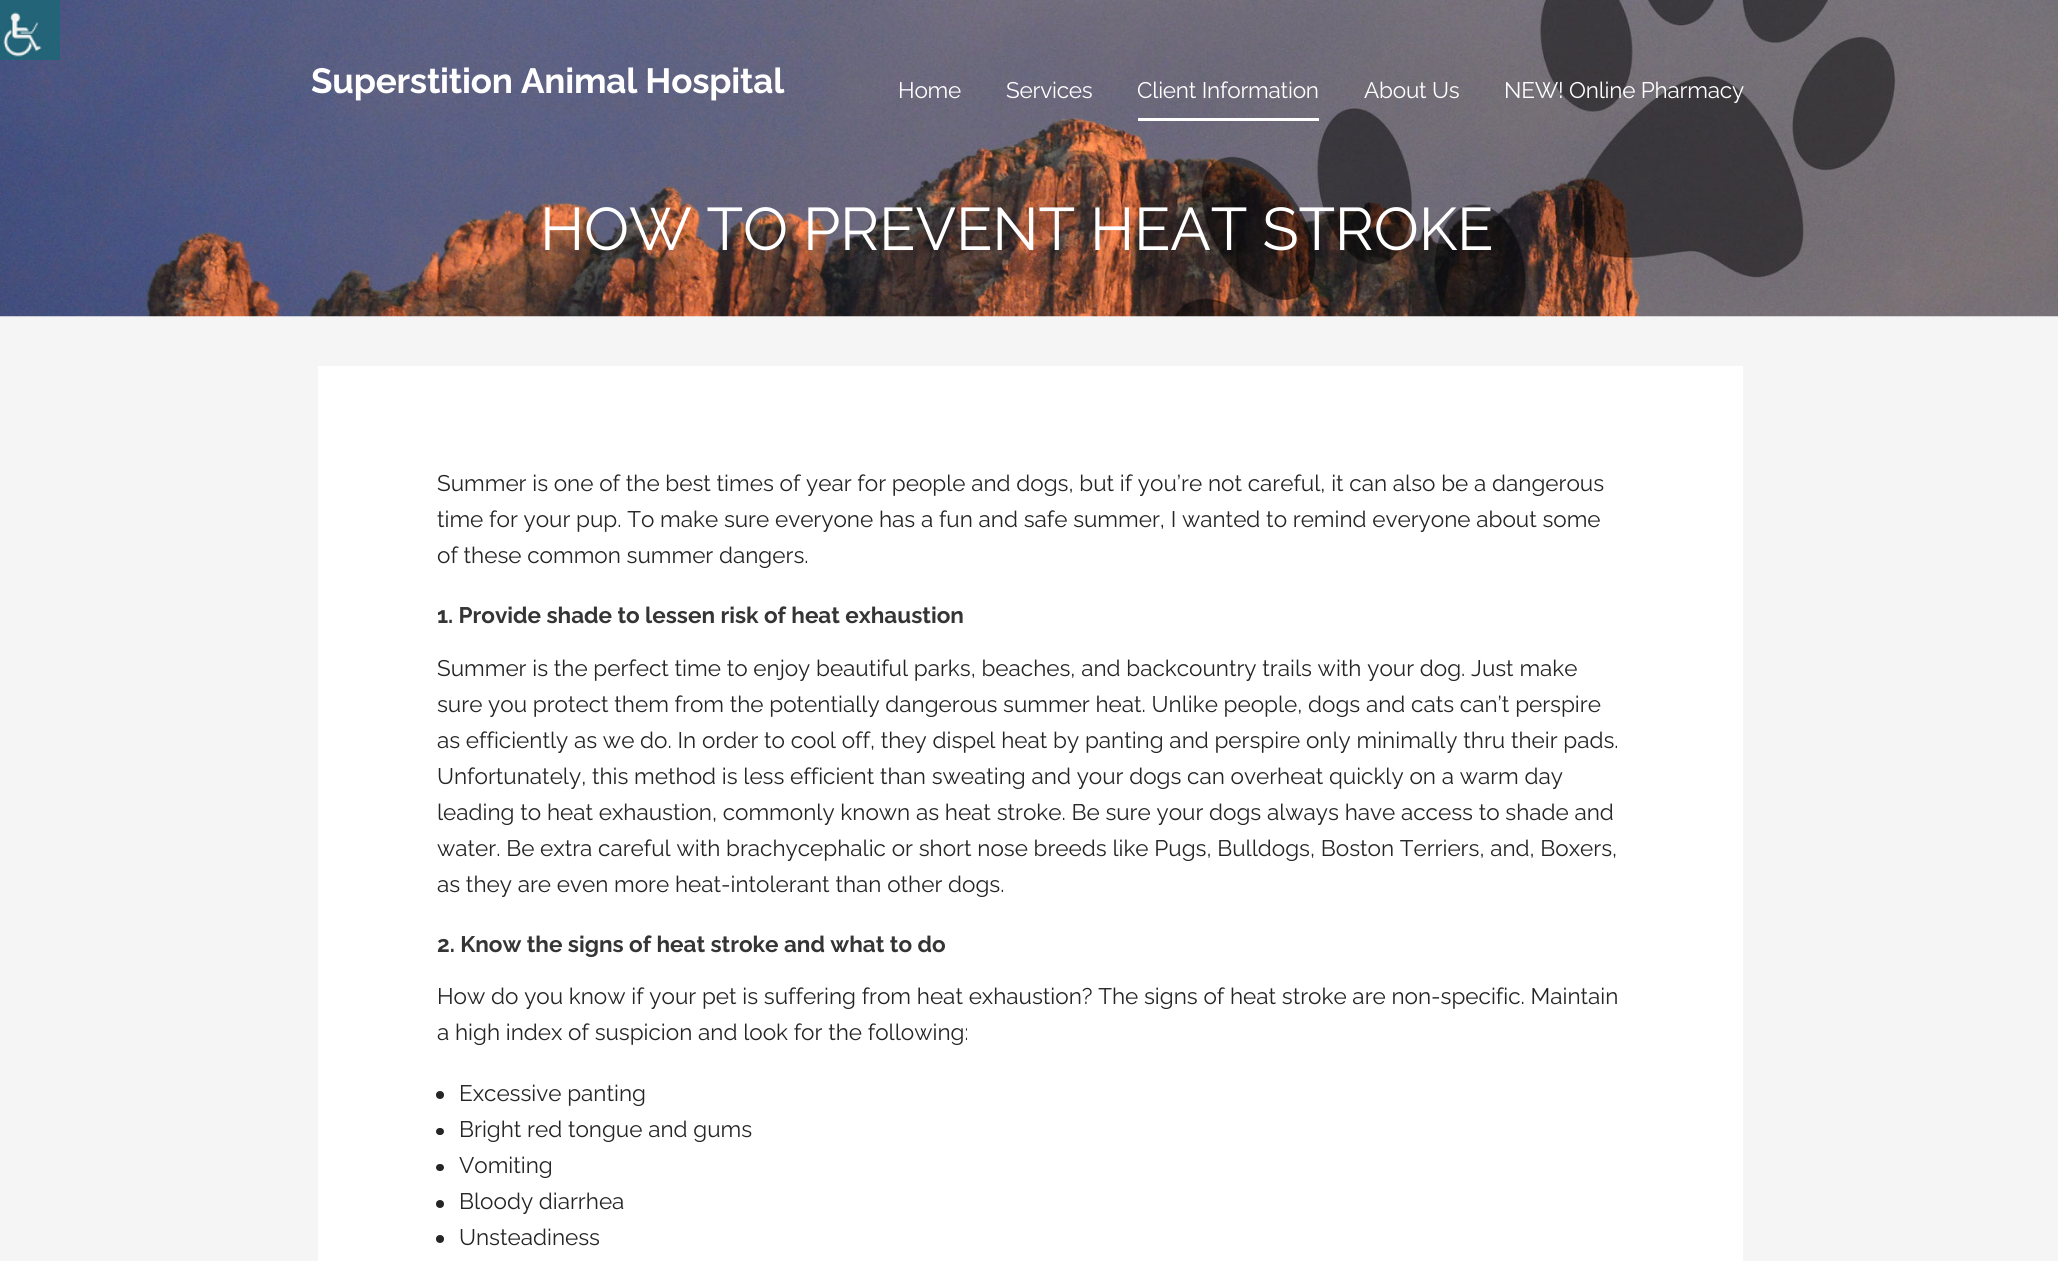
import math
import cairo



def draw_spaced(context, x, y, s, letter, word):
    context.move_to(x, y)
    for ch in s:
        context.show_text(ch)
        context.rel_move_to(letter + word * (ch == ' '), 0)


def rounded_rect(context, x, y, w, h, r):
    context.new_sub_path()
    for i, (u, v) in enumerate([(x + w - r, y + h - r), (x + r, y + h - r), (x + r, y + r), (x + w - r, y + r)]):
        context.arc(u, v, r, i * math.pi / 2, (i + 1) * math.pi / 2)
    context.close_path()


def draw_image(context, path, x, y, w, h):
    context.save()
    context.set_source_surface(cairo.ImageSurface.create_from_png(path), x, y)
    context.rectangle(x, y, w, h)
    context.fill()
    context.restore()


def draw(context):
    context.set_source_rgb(245 / 255, 245 / 255, 245 / 255)
    context.paint()
    draw_image(context, "images/2.png", 0, 0, 2058, 317)
    draw_image(context, "images/1.png", 0, 0, 60, 60)
    context.set_source_rgb(1, 1, 1)
    context.rectangle(1138, 118, 181, 3)
    context.fill()
    context.rectangle(318, 366, 1425, 895)
    context.fill()
    context.set_source_rgb(37 / 255, 37 / 255, 37 / 255)
    context.arc(440, 1095, 4, 0, 2 * math.pi)
    context.fill()
    rounded_rect(context, 436, 1128, 8, 7, 3.5)
    context.fill()
    rounded_rect(context, 436, 1164, 8, 7, 3.5)
    context.fill()
    context.arc(440, 1204, 4, 0, 2 * math.pi)
    context.fill()
    context.arc(440, 1239, 4, 0, 2 * math.pi)
    context.fill()
    context.select_font_face("Raleway", cairo.FontSlant.NORMAL, cairo.FontWeight.BOLD)
    context.set_font_size(35)
    context.set_source_rgb(1, 1, 1)
    draw_spaced(context, 311, 93, "Superstition Animal Hospital", -0.2, 0)
    context.select_font_face("Raleway")
    context.set_font_size(22.5)
    draw_spaced(context, 898, 98, "Home", -0.2, 0)
    draw_spaced(context, 1006, 98, "Services", -0.2, 0)
    draw_spaced(context, 1137, 98, "Client Information", -0.2, 0)
    draw_spaced(context, 1364, 98, "About Us", -0.2, 0)
    draw_spaced(context, 1504, 98, "NEW! Online Pharmacy", -0.2, 0)
    context.set_font_size(60)
    draw_spaced(context, 540, 250, "HOW TO PREVENT HEAT STROKE", -0.2, 0)
    context.set_font_size(22.5)
    context.set_source_rgb(37 / 255, 37 / 255, 37 / 255)
    context.move_to(437, 491)
    context.show_text("Summer is one of the best times of year for people and dogs, but if you’re not careful, it can also be a dangerous")
    context.move_to(437, 527)
    context.show_text("time for your pup. To make sure everyone has a fun and safe summer, I wanted to remind everyone about some")
    context.move_to(437, 563)
    context.show_text("of these common summer dangers.")
    context.select_font_face("Raleway", cairo.FontSlant.NORMAL, cairo.FontWeight.BOLD)
    context.set_source_rgb(53 / 255, 53 / 255, 53 / 255)
    context.move_to(437, 623)
    context.show_text("1. Provide shade to lessen risk of heat exhaustion")
    context.select_font_face("Raleway")
    context.set_source_rgb(37 / 255, 37 / 255, 37 / 255)
    context.move_to(437, 676)
    context.show_text("Summer is the perfect time to enjoy beautiful parks, beaches, and backcountry trails with your dog. Just make")
    context.move_to(437, 712)
    context.show_text("sure you protect them from the potentially dangerous summer heat. Unlike people, dogs and cats can’t perspire")
    context.move_to(437, 748)
    context.show_text("as efficiently as we do. In order to cool off, they dispel heat by panting and perspire only minimally thru their pads.")
    context.move_to(437, 784)
    context.show_text("Unfortunately, this method is less efficient than sweating and your dogs can overheat quickly on a warm day")
    context.move_to(437, 820)
    context.show_text("leading to heat exhaustion, commonly known as heat stroke. Be sure your dogs always have access to shade and")
    context.move_to(437, 856)
    context.show_text("water. Be extra careful with brachycephalic or short nose breeds like Pugs, Bulldogs, Boston Terriers, and, Boxers,")
    context.move_to(437, 892)
    context.show_text("as they are even more heat-intolerant than other dogs.")
    context.select_font_face("Raleway", cairo.FontSlant.NORMAL, cairo.FontWeight.BOLD)
    context.set_source_rgb(53 / 255, 53 / 255, 53 / 255)
    context.move_to(437, 952)
    context.show_text("2. Know the signs of heat stroke and what to do")
    context.select_font_face("Raleway")
    context.set_source_rgb(37 / 255, 37 / 255, 37 / 255)
    context.move_to(437, 1004)
    context.show_text("How do you know if your pet is suffering from heat exhaustion? The signs of heat stroke are non-specific. Maintain")
    context.move_to(437, 1040)
    context.show_text("a high index of suspicion and look for the following:")
    context.move_to(459, 1101)
    context.show_text("Excessive panting")
    context.move_to(459, 1137)
    context.show_text("Bright red tongue and gums")
    context.move_to(459, 1173)
    context.show_text("Vomiting")
    context.move_to(459, 1209)
    context.show_text("Bloody diarrhea")
    context.move_to(459, 1245)
    context.show_text("Unsteadiness")


surface = cairo.ImageSurface(cairo.Format.RGB24, 2058, 1261)
context = cairo.Context(surface)
options = cairo.FontOptions()
options.set_hint_metrics(cairo.HintMetrics.OFF)
options.set_hint_style(cairo.HintStyle.NONE)
context.set_font_options(options)
context.set_miter_limit(4)
draw(context)
surface.write_to_png("out.png")
